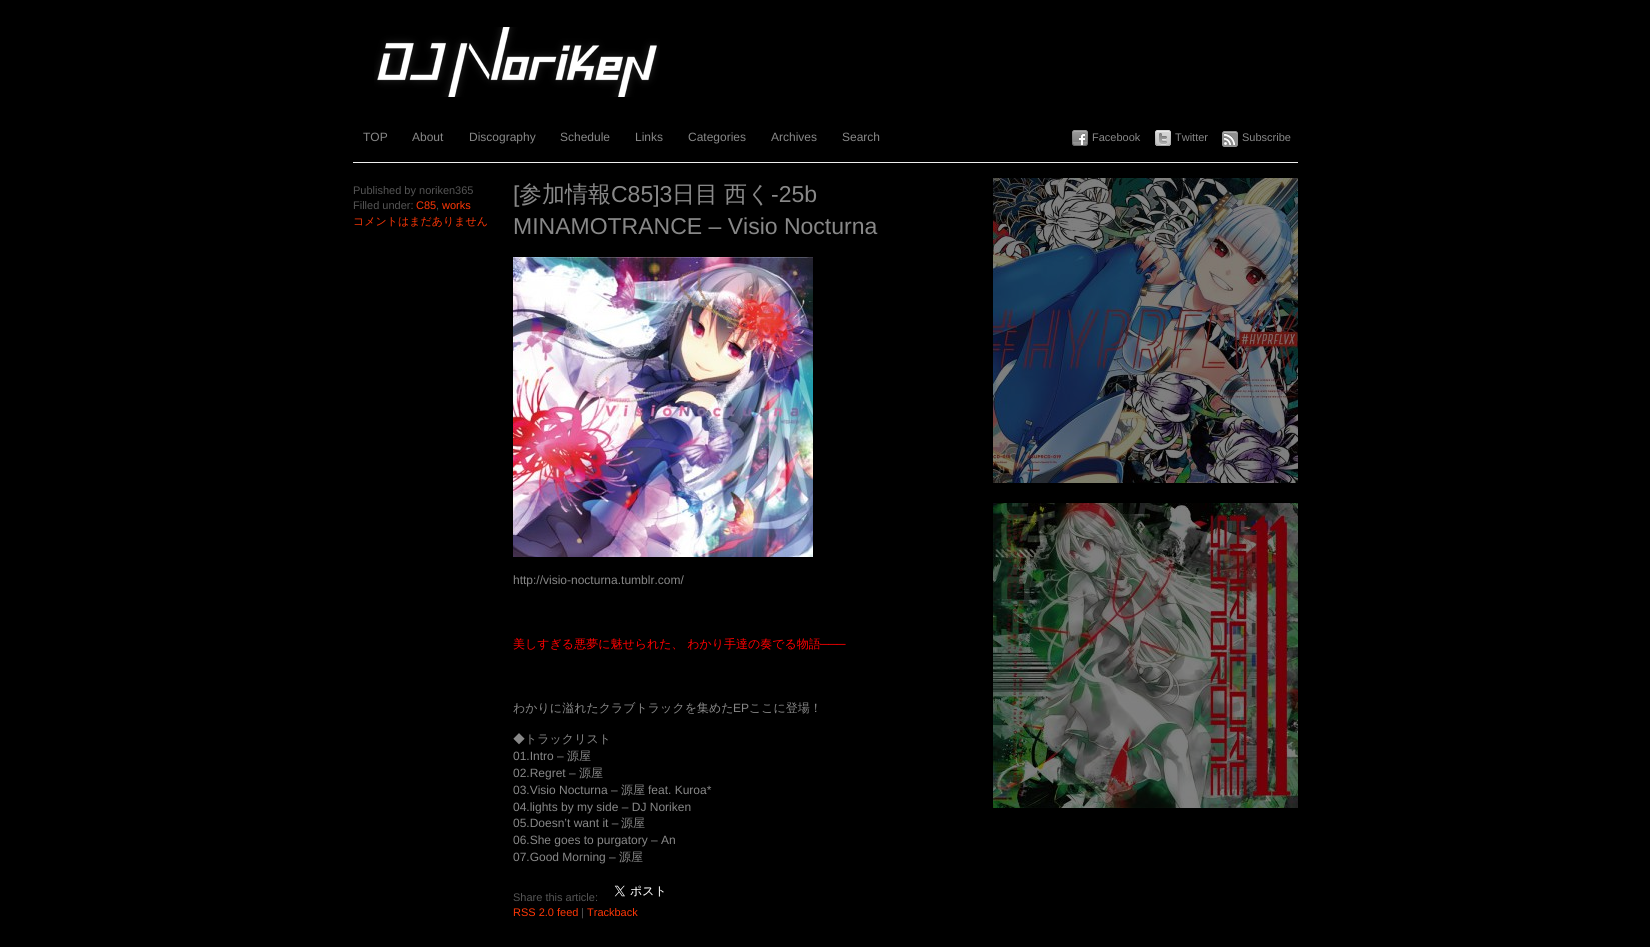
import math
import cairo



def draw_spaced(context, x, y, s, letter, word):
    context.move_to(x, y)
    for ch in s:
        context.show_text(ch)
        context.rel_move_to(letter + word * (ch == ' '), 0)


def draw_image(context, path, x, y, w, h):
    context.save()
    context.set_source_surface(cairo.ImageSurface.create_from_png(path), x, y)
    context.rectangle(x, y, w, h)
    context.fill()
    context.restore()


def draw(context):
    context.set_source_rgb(0, 0, 0)
    context.paint()
    draw_image(context, "images/1.png", 374, 27, 286, 70)
    context.set_source_rgb(238 / 255, 238 / 255, 238 / 255)
    context.rectangle(353, 162, 945, 1)
    context.fill()
    draw_image(context, "images/2.png", 1072, 130, 16, 16)
    draw_image(context, "images/3.png", 1155, 130, 16, 16)
    draw_image(context, "images/4.png", 1222, 131, 16, 16)
    draw_image(context, "images/5.png", 513, 257, 300, 300)
    draw_image(context, "images/6.png", 614, 885, 50, 12)
    draw_image(context, "images/7.png", 993, 178, 305, 305)
    draw_image(context, "images/8.png", 993, 503, 305, 305)
    context.select_font_face("Liberation Sans")
    context.set_font_size(12)
    context.set_source_rgb(136 / 255, 136 / 255, 136 / 255)
    context.move_to(363, 141)
    context.show_text("TOP")
    context.move_to(412, 141)
    context.show_text("About")
    context.move_to(469, 141)
    context.show_text("Discography")
    context.move_to(560, 141)
    context.show_text("Schedule")
    context.move_to(635, 141)
    context.show_text("Links")
    context.move_to(688, 141)
    context.show_text("Categories")
    context.move_to(771, 141)
    context.show_text("Archives")
    context.move_to(842, 141)
    context.show_text("Search")
    context.set_font_size(11)
    context.move_to(1092, 141)
    context.show_text("Facebook")
    context.move_to(1175, 141)
    context.show_text("Twitter")
    context.move_to(1242, 141)
    context.show_text("Subscribe")
    context.set_source_rgb(85 / 255, 85 / 255, 85 / 255)
    context.move_to(353, 194)
    context.show_text("Published by noriken365")
    context.move_to(353, 209)
    context.show_text("Filled under:")
    context.set_source_rgb(1, 55 / 255, 6 / 255)
    context.move_to(416, 209)
    context.show_text("C85")
    context.set_source_rgb(85 / 255, 85 / 255, 85 / 255)
    context.move_to(436, 209)
    context.show_text(",")
    context.set_source_rgb(1, 55 / 255, 6 / 255)
    context.move_to(442, 209)
    context.show_text("works")
    context.select_font_face("WenQuanYi Zen Hei Medium")
    context.move_to(353, 225)
    context.show_text("コメントはまだありません")
    context.select_font_face("Liberation Sans")
    context.set_font_size(23)
    context.set_source_rgb(136 / 255, 136 / 255, 136 / 255)
    context.move_to(513, 202)
    context.show_text("[")
    context.select_font_face("WenQuanYi Zen Hei Medium")
    context.move_to(519, 202)
    context.show_text("参加情報")
    context.select_font_face("Liberation Sans")
    context.move_to(611, 202)
    context.show_text("C85]3")
    context.select_font_face("WenQuanYi Zen Hei Medium")
    draw_spaced(context, 672, 202, "日目 西く", 0, -1)
    context.select_font_face("Liberation Sans")
    context.move_to(771, 202)
    context.show_text("-25b")
    context.move_to(513, 234)
    context.show_text("MINAMOTRANCE – Visio Nocturna")
    context.set_font_size(12)
    context.move_to(513, 584)
    context.show_text("http://visio-nocturna.tumblr.com/")
    context.select_font_face("WenQuanYi Zen Hei Medium")
    context.set_source_rgb(1, 0, 0)
    context.move_to(513, 648)
    context.show_text("美しすぎる悪夢に魅せられた、 わかり手達の奏でる物語")
    context.select_font_face("Liberation Sans")
    context.move_to(820, 648)
    context.show_text("───")
    context.select_font_face("WenQuanYi Zen Hei Medium")
    context.set_source_rgb(136 / 255, 136 / 255, 136 / 255)
    context.move_to(513, 712)
    context.show_text("わかりに溢れたクラブトラックを集めた")
    context.select_font_face("Liberation Sans")
    context.move_to(733, 712)
    context.show_text("EP")
    context.select_font_face("WenQuanYi Zen Hei Medium")
    context.move_to(749, 712)
    context.show_text("ここに登場！")
    context.move_to(513, 743)
    context.show_text("◆トラックリスト")
    context.select_font_face("Liberation Sans")
    context.move_to(513, 760)
    context.show_text("01.Intro –")
    context.select_font_face("WenQuanYi Zen Hei Medium")
    context.move_to(567, 760)
    context.show_text("源屋")
    context.select_font_face("Liberation Sans")
    context.move_to(513, 777)
    context.show_text("02.Regret –")
    context.select_font_face("WenQuanYi Zen Hei Medium")
    context.move_to(579, 777)
    context.show_text("源屋")
    context.select_font_face("Liberation Sans")
    context.move_to(513, 794)
    context.show_text("03.Visio Nocturna –")
    context.select_font_face("WenQuanYi Zen Hei Medium")
    context.move_to(621, 794)
    context.show_text("源屋")
    context.select_font_face("Liberation Sans")
    context.move_to(648, 794)
    context.show_text("feat. Kuroa*")
    context.move_to(513, 811)
    context.show_text("04.lights by my side – DJ Noriken")
    context.move_to(513, 827)
    context.show_text("05.Doesn’t want it –")
    context.select_font_face("WenQuanYi Zen Hei Medium")
    context.move_to(621, 827)
    context.show_text("源屋")
    context.select_font_face("Liberation Sans")
    context.move_to(513, 844)
    context.show_text("06.She goes to purgatory – An")
    context.move_to(513, 861)
    context.show_text("07.Good Morning –")
    context.select_font_face("WenQuanYi Zen Hei Medium")
    context.move_to(619, 861)
    context.show_text("源屋")
    context.select_font_face("Liberation Sans")
    context.set_font_size(11)
    context.set_source_rgb(85 / 255, 85 / 255, 85 / 255)
    context.move_to(513, 901)
    context.show_text("Share this article:")
    context.set_source_rgb(1, 55 / 255, 6 / 255)
    context.move_to(513, 916)
    context.show_text("RSS 2.0 feed")
    context.set_source_rgb(85 / 255, 85 / 255, 85 / 255)
    context.move_to(581, 916)
    context.show_text("|")
    context.set_source_rgb(1, 55 / 255, 6 / 255)
    context.move_to(587, 916)
    context.show_text("Trackback")


surface = cairo.ImageSurface(cairo.Format.RGB24, 1650, 947)
context = cairo.Context(surface)
options = cairo.FontOptions()
options.set_hint_metrics(cairo.HintMetrics.OFF)
options.set_hint_style(cairo.HintStyle.NONE)
context.set_font_options(options)
context.set_miter_limit(4)
draw(context)
surface.write_to_png("out.png")
